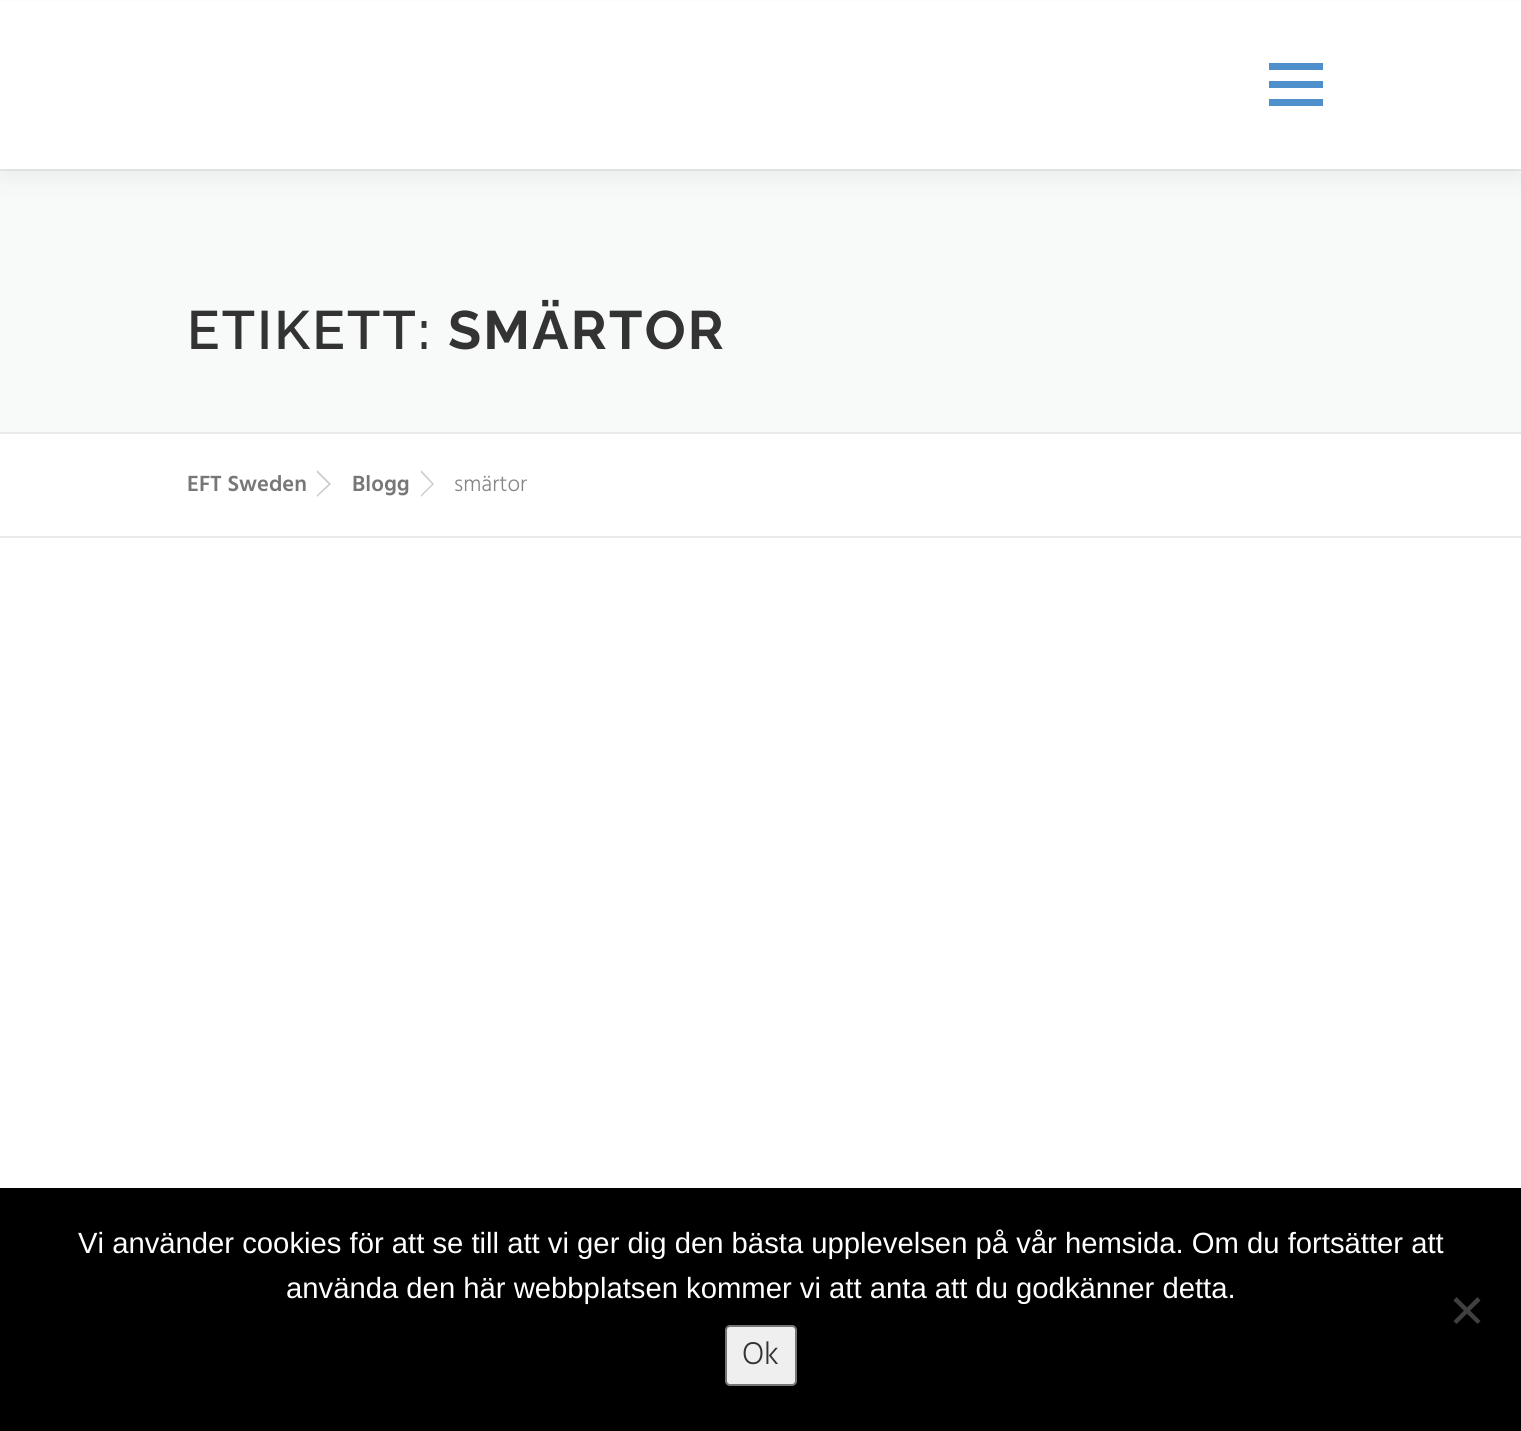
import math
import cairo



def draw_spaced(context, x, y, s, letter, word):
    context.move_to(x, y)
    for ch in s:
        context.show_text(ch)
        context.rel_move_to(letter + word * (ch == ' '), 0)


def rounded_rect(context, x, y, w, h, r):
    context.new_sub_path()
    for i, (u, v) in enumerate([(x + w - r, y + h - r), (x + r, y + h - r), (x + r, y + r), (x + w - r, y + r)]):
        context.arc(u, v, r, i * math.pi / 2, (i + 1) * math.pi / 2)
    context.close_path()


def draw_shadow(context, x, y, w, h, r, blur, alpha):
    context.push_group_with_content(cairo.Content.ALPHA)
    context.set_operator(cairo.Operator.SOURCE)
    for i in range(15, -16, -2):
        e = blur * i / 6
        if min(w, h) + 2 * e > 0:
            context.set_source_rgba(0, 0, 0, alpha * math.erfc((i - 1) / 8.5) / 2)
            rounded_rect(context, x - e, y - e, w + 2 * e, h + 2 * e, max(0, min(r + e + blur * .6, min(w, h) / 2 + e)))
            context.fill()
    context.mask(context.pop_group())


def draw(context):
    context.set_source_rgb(1, 1, 1)
    context.paint()
    context.set_source_rgb(248 / 255, 249 / 255, 249 / 255)
    context.rectangle(0, 171, 1521, 261)
    context.fill()
    context.set_source_rgb(233 / 255, 233 / 255, 233 / 255)
    context.rectangle(0, 169, 1521, 2)
    context.fill()
    context.set_source_rgb(50 / 255, 50 / 255, 50 / 255)
    draw_shadow(context, 0, 11, 1521, 169, 0, 11, 0.06)
    context.set_source_rgb(1, 1, 1)
    context.rectangle(0, 2, 1521, 167)
    context.fill()
    context.set_source_rgb(79 / 255, 143 / 255, 204 / 255)
    context.rectangle(1269, 81, 54, 7)
    context.fill()
    context.rectangle(1269, 63, 54, 7)
    context.fill()
    context.rectangle(1269, 99, 54, 7)
    context.fill()
    context.set_source_rgb(233 / 255, 233 / 255, 233 / 255)
    context.rectangle(0, 432, 1521, 2)
    context.fill()
    context.rectangle(0, 536, 1521, 2)
    context.fill()
    context.set_source_rgb(204 / 255, 204 / 255, 204 / 255)
    context.new_path()
    context.move_to(317, 497)
    context.line_to(317, 470)
    context.line_to(331, 484)
    context.close_path()
    context.fill()
    context.set_source_rgb(1, 1, 1)
    context.new_path()
    context.move_to(317, 495)
    context.line_to(317, 472.5)
    context.line_to(328.5, 484)
    context.close_path()
    context.fill()
    context.set_source_rgb(204 / 255, 204 / 255, 204 / 255)
    context.new_path()
    context.move_to(421, 497)
    context.line_to(421, 470)
    context.line_to(434, 484)
    context.close_path()
    context.fill()
    context.set_source_rgb(1, 1, 1)
    context.new_path()
    context.move_to(421, 495)
    context.line_to(421, 472.5)
    context.line_to(432, 484)
    context.close_path()
    context.fill()
    context.set_source_rgb(0, 0, 0)
    context.rectangle(0, 1188, 1521, 243)
    context.fill()
    context.set_source_rgb(64 / 255, 64 / 255, 64 / 255)
    context.new_path()
    context.move_to(1477.5, 1297)
    context.line_to(1480.5, 1300.5)
    context.line_to(1456.5, 1324)
    context.line_to(1453.5, 1321)
    context.close_path()
    context.fill()
    context.new_path()
    context.move_to(1453.5, 1300.5)
    context.line_to(1456.5, 1297)
    context.line_to(1480.5, 1321)
    context.line_to(1477.5, 1324)
    context.close_path()
    context.fill()
    context.set_source_rgb(239 / 255, 239 / 255, 239 / 255)
    rounded_rect(context, 726, 1326, 70, 59, 4)
    context.fill_preserve()
    context.set_source_rgb(118 / 255, 118 / 255, 118 / 255)
    context.stroke()
    context.select_font_face("Raleway SemiBold")
    context.set_font_size(54)
    context.set_source_rgb(51 / 255, 51 / 255, 51 / 255)
    draw_spaced(context, 187, 349, "ETIKETT:", 2.25, 0)
    context.select_font_face("Raleway", cairo.FontSlant.NORMAL, cairo.FontWeight.BOLD)
    draw_spaced(context, 448, 349, "SMÄRTOR", 2.25, 0)
    context.select_font_face("Hind SemiBold")
    context.set_font_size(22.5)
    context.set_source_rgb(119 / 255, 119 / 255, 119 / 255)
    context.move_to(187, 491)
    context.show_text("EFT Sweden")
    context.move_to(352, 491)
    context.show_text("Blogg")
    context.select_font_face("Hind Light")
    context.set_source_rgb(133 / 255, 133 / 255, 133 / 255)
    context.move_to(454, 491)
    context.show_text("smärtor")
    context.select_font_face("Liberation Sans")
    context.set_font_size(29.25)
    context.set_source_rgb(1, 1, 1)
    context.move_to(78, 1253)
    context.show_text("Vi använder cookies för att se till att vi ger dig den bästa upplevelsen på vår hemsida. Om du fortsätter att")
    context.move_to(286, 1298)
    context.show_text("använda den här webbplatsen kommer vi att anta att du godkänner detta.")
    context.select_font_face("Hind Light")
    context.set_font_size(32)
    context.set_source_rgb(51 / 255, 51 / 255, 51 / 255)
    context.move_to(742, 1364)
    context.show_text("Ok")


surface = cairo.ImageSurface(cairo.Format.RGB24, 1521, 1431)
context = cairo.Context(surface)
options = cairo.FontOptions()
options.set_hint_metrics(cairo.HintMetrics.OFF)
options.set_hint_style(cairo.HintStyle.NONE)
context.set_font_options(options)
context.set_miter_limit(4)
draw(context)
surface.write_to_png("out.png")
